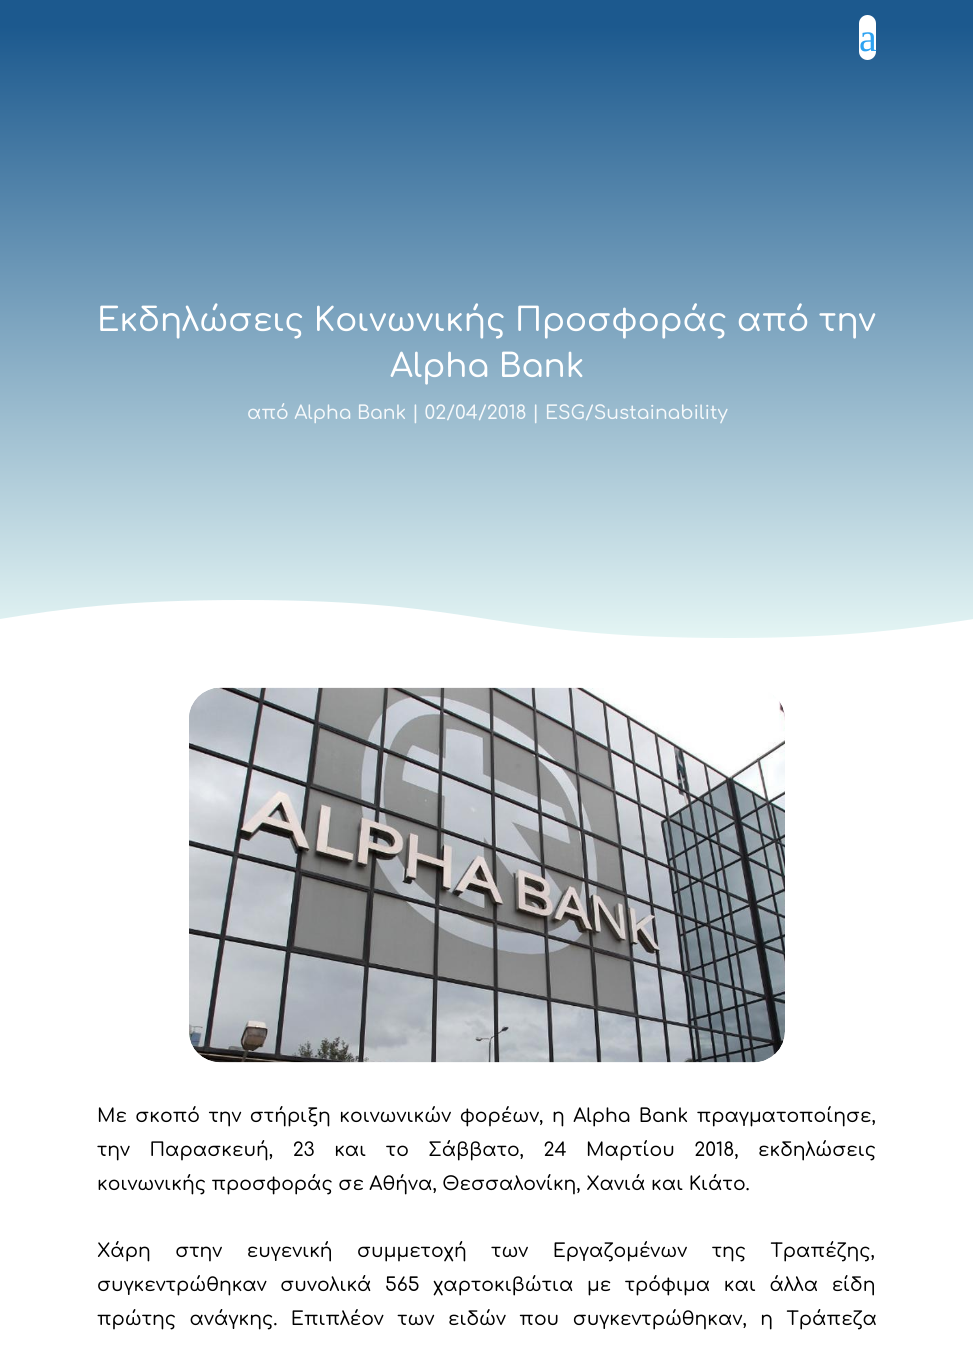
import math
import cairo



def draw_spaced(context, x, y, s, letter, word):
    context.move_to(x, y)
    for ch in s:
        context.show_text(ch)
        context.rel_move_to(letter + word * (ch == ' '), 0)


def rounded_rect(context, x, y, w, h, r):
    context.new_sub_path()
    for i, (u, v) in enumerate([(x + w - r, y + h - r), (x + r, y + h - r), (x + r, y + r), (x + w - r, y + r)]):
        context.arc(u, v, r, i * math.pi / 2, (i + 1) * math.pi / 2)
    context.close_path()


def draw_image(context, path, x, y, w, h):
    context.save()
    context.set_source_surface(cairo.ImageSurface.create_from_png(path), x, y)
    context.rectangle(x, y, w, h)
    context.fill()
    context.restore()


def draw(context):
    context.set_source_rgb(1, 1, 1)
    context.paint()
    gradient = cairo.LinearGradient(487, 0, 487, 650)
    gradient.add_color_stop_rgba(0.04, 28 / 255, 89 / 255, 142 / 255, 1)
    gradient.add_color_stop_rgba(1, 232 / 255, 248 / 255, 246 / 255, 1)
    context.set_source(gradient)
    context.rectangle(0, 0, 973, 638)
    context.fill()
    context.set_source_rgb(1, 1, 1)
    rounded_rect(context, 859, 15, 17, 45, 8.5)
    context.fill()
    context.new_path()
    context.move_to(243, 600)
    context.curve_to(487, 600, 487, 638, 730, 638)
    context.curve_to(852, 638, 913, 628, 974, 619)
    context.line_to(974, 650)
    context.line_to(0, 650)
    context.line_to(0, 619)
    context.curve_to(61, 609, 122, 600, 243, 600)
    context.close_path()
    context.fill()
    draw_image(context, "images/1.png", 189, 687, 596, 376)
    context.select_font_face("Liberation Serif")
    context.set_font_size(40)
    context.set_source_rgb(46 / 255, 163 / 255, 242 / 255)
    context.move_to(859, 51)
    context.show_text("a")
    context.select_font_face("Comfortaa Medium")
    context.set_font_size(32.5)
    context.set_source_rgb(1, 1, 1)
    context.move_to(97, 331)
    context.show_text("Εκδηλώσεις Κοινωνικής Προσφοράς από την")
    context.move_to(390, 377)
    context.show_text("Alpha Bank")
    context.set_font_size(18.75)
    context.set_source_rgb(246 / 255, 249 / 255, 251 / 255)
    context.move_to(247, 419)
    context.show_text("από Alpha Bank | 02/04/2018 | ESG/Sustainability")
    context.set_source_rgb(0, 0, 0)
    draw_spaced(context, 97, 1122, "Με σκοπό την στήριξη κοινωνικών φορέων, η Alpha Bank πραγματοποίησε,", 0, 3)
    draw_spaced(context, 97, 1156, "την Παρασκευή, 23 και το Σάββατο, 24 Μαρτίου 2018, εκδηλώσεις", 0, 14)
    context.move_to(97, 1190)
    context.show_text("κοινωνικής προσφοράς σε Αθήνα, Θεσσαλονίκη, Χανιά και Κιάτο.")
    draw_spaced(context, 97, 1257, "Χάρη στην ευγενική συμμετοχή των Εργαζομένων της Τραπέζης,", 0, 19)
    draw_spaced(context, 97, 1291, "συγκεντρώθηκαν συνολικά 565 χαρτοκιβώτια με τρόφιμα και άλλα είδη", 0, 8)
    draw_spaced(context, 97, 1325, "πρώτης ανάγκης. Επιπλέον των ειδών που συγκεντρώθηκαν, η Τράπεζα", 0, 8)


surface = cairo.ImageSurface(cairo.Format.RGB24, 973, 1346)
context = cairo.Context(surface)
options = cairo.FontOptions()
options.set_hint_metrics(cairo.HintMetrics.OFF)
options.set_hint_style(cairo.HintStyle.NONE)
context.set_font_options(options)
context.set_miter_limit(4)
draw(context)
surface.write_to_png("out.png")
